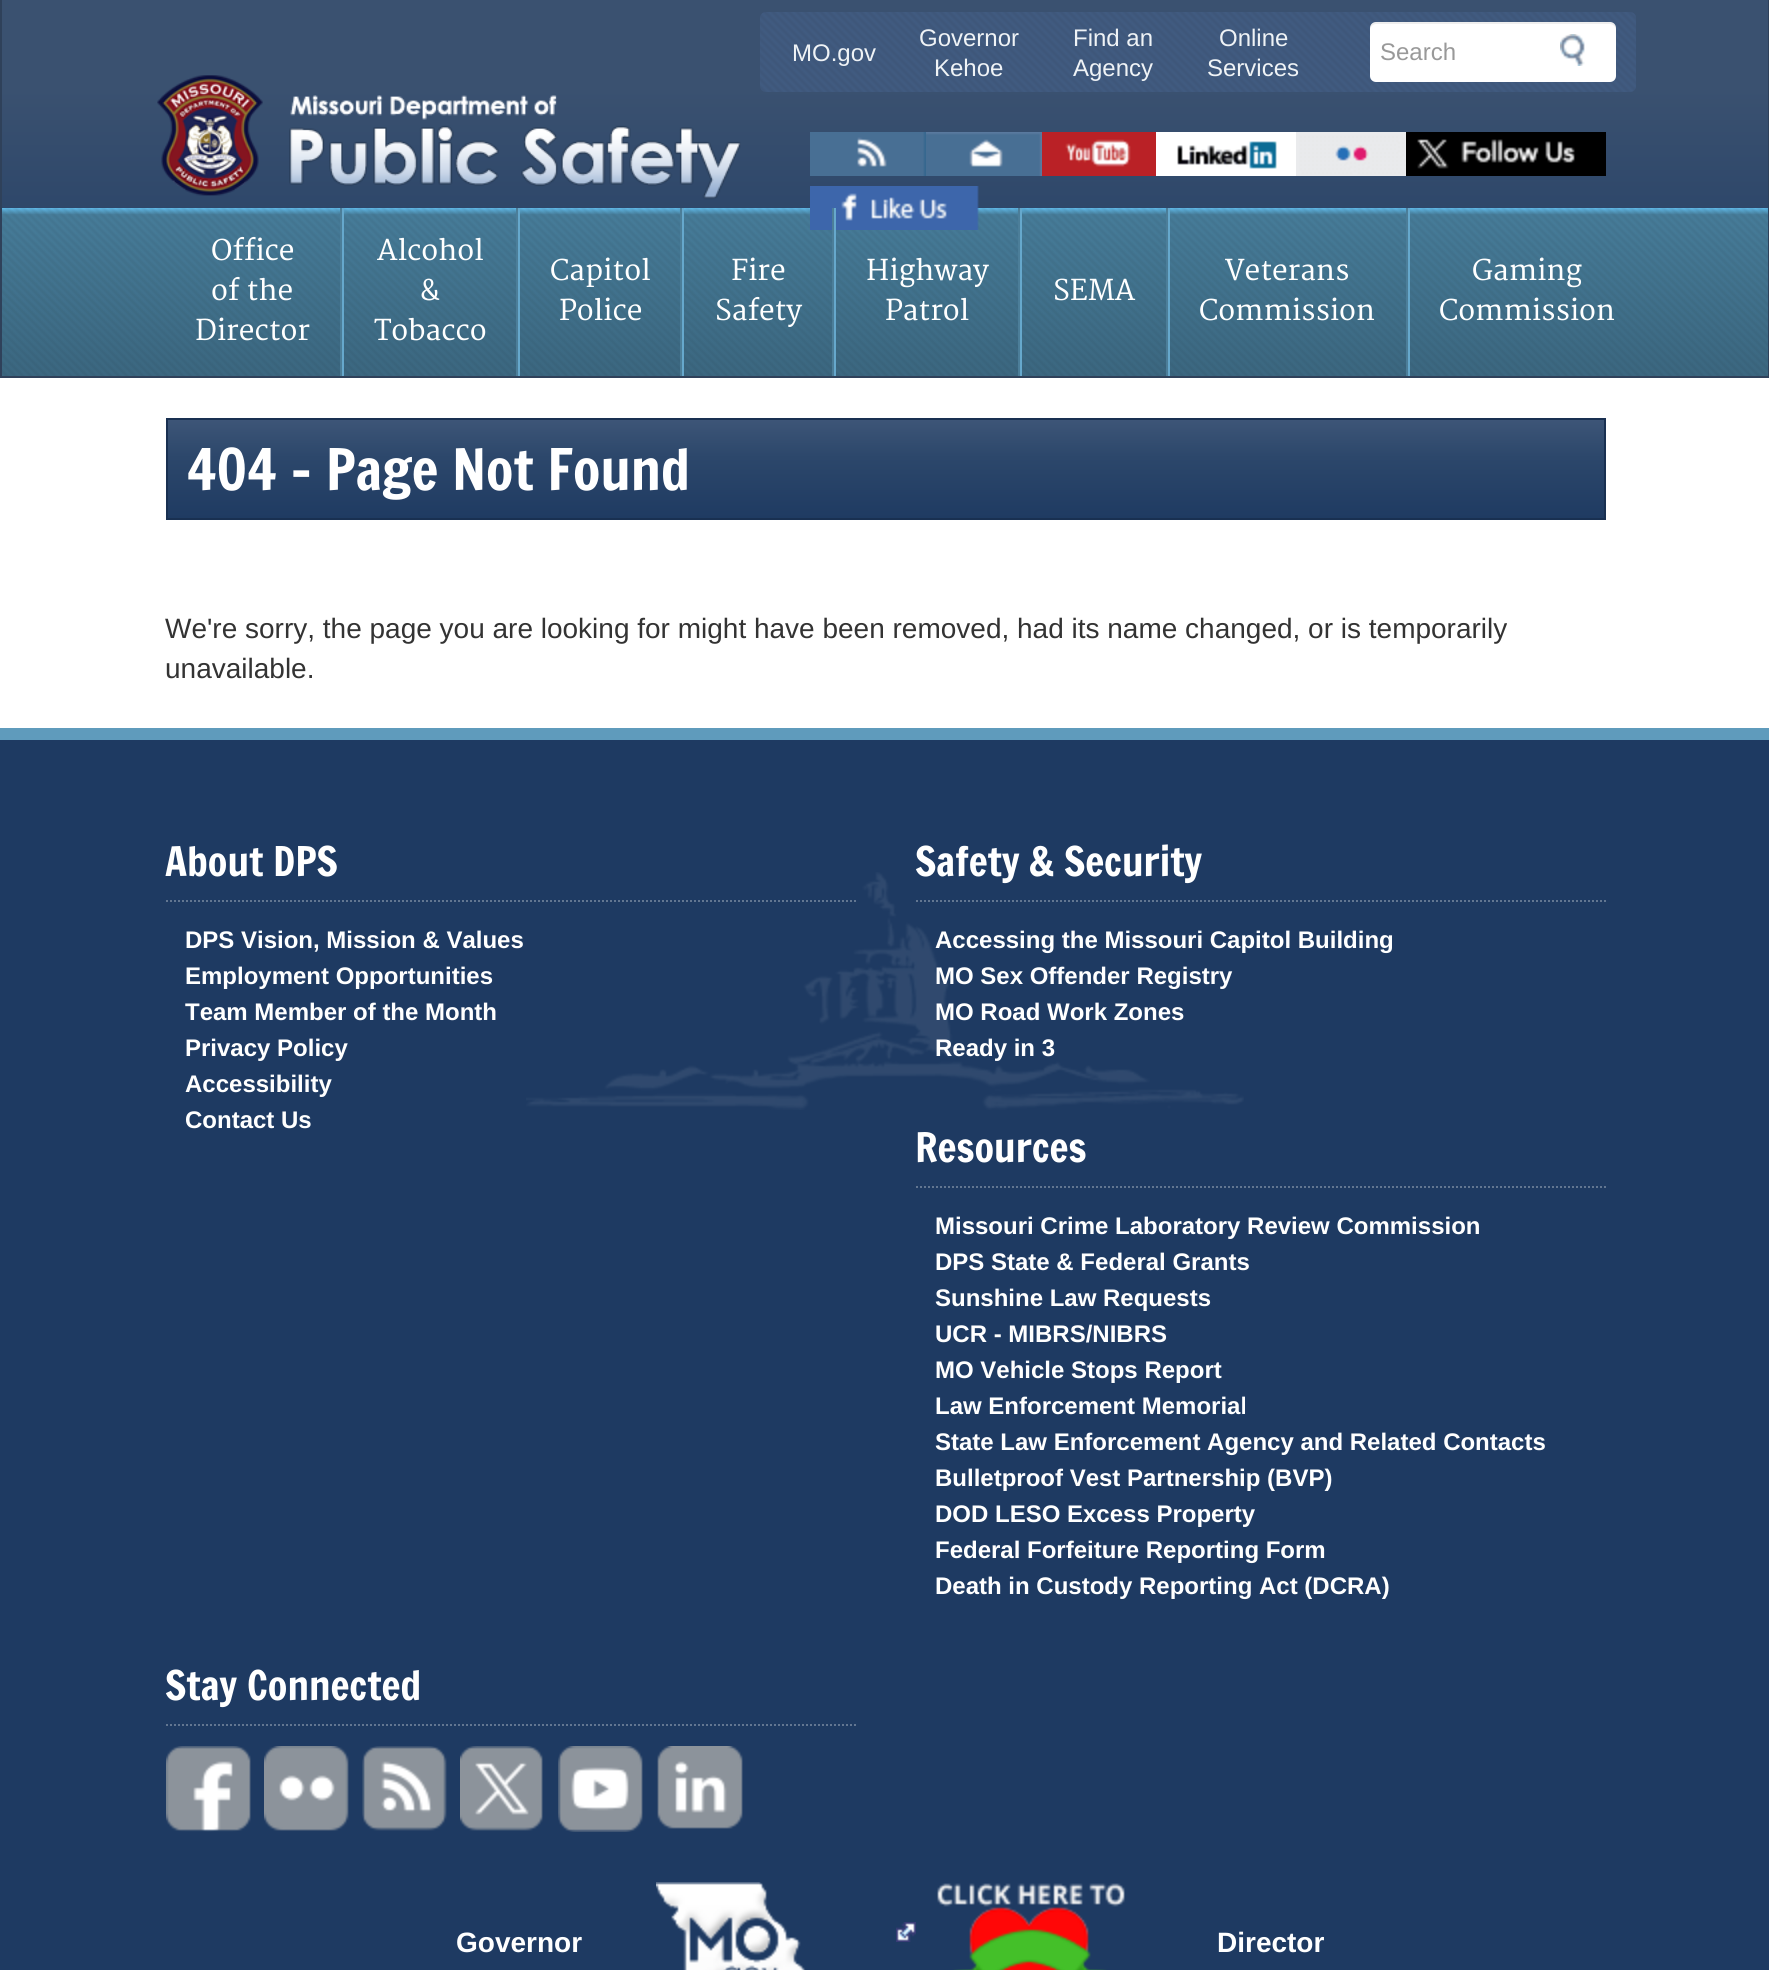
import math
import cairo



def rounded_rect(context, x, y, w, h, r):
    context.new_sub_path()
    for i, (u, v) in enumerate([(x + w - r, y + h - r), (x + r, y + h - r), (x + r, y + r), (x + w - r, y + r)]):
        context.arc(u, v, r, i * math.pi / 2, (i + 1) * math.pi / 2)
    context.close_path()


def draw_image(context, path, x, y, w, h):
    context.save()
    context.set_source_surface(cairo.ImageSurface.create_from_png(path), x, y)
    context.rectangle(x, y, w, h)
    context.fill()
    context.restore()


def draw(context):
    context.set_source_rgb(1, 1, 1)
    context.paint()
    gradient = cairo.LinearGradient(885, -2, 885, 376)
    gradient.add_color_stop_rgba(0, 58 / 255, 81 / 255, 112 / 255, 1)
    gradient.add_color_stop_rgba(0.24, 58 / 255, 81 / 255, 112 / 255, 1)
    gradient.add_color_stop_rgba(1, 30 / 255, 58 / 255, 98 / 255, 1)
    context.set_source(gradient)
    context.rectangle(2, 0, 1766, 208)
    context.fill()
    context.rectangle(1, -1, 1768, 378)
    context.set_source_rgb(47 / 255, 65 / 255, 90 / 255)
    context.stroke()
    context.set_source_rgb(65 / 255, 91 / 255, 129 / 255)
    rounded_rect(context, 760, 12, 876, 80, 6)
    context.fill()
    draw_image(context, "images/1.png", 760, 12, 876, 80)
    context.set_source_rgb(1, 1, 1)
    rounded_rect(context, 1370, 22, 246, 60, 6)
    context.fill()
    context.set_source_rgba(0, 0, 0, 0.07)
    context.new_path()
    context.move_to(1376, 24)
    context.line_to(1610, 24)
    context.curve_to(1613, 24, 1616, 27, 1616, 30)
    context.line_to(1616, 28)
    context.curve_to(1616, 25, 1613, 22, 1610, 22)
    context.line_to(1376, 22)
    context.curve_to(1373, 22, 1370, 25, 1370, 28)
    context.line_to(1370, 30)
    context.curve_to(1370, 27, 1373, 24, 1376, 24)
    context.close_path()
    context.fill()
    draw_image(context, "images/2.png", 1560, 34, 25, 32)
    draw_image(context, "images/3.png", 810, 132, 116, 44)
    draw_image(context, "images/4.png", 926, 132, 116, 44)
    draw_image(context, "images/5.png", 1042, 132, 114, 44)
    draw_image(context, "images/6.png", 1156, 132, 140, 44)
    draw_image(context, "images/7.png", 1296, 132, 110, 44)
    draw_image(context, "images/8.png", 1406, 132, 200, 44)
    draw_image(context, "images/11.png", 2, 208, 1766, 168)
    draw_image(context, "images/9.png", 810, 186, 169, 44)
    draw_image(context, "images/10.png", 157, 75, 584, 125)
    context.set_source_rgb(76 / 255, 126 / 255, 153 / 255)
    context.rectangle(340, 208, 2, 168)
    context.fill()
    context.rectangle(516, 208, 2, 168)
    context.fill()
    context.set_source_rgb(102 / 255, 168 / 255, 204 / 255)
    context.rectangle(342, 208, 2, 168)
    context.fill()
    context.set_source_rgb(76 / 255, 126 / 255, 153 / 255)
    context.rectangle(680, 208, 2, 168)
    context.fill()
    context.set_source_rgb(102 / 255, 168 / 255, 204 / 255)
    context.rectangle(518, 208, 2, 168)
    context.fill()
    context.set_source_rgb(76 / 255, 126 / 255, 153 / 255)
    context.rectangle(832, 208, 2, 168)
    context.fill()
    context.set_source_rgb(102 / 255, 168 / 255, 204 / 255)
    context.rectangle(682, 208, 2, 168)
    context.fill()
    context.set_source_rgb(76 / 255, 126 / 255, 153 / 255)
    context.rectangle(1018, 208, 2, 168)
    context.fill()
    context.set_source_rgb(102 / 255, 168 / 255, 204 / 255)
    context.rectangle(834, 208, 2, 168)
    context.fill()
    context.set_source_rgb(76 / 255, 126 / 255, 153 / 255)
    context.rectangle(1166, 208, 2, 168)
    context.fill()
    context.set_source_rgb(102 / 255, 168 / 255, 204 / 255)
    context.rectangle(1020, 208, 2, 168)
    context.fill()
    context.set_source_rgb(76 / 255, 126 / 255, 153 / 255)
    context.rectangle(1406, 208, 2, 168)
    context.fill()
    context.set_source_rgb(102 / 255, 168 / 255, 204 / 255)
    context.rectangle(1168, 208, 2, 168)
    context.fill()
    context.rectangle(1408, 208, 2, 168)
    context.fill()
    gradient = cairo.LinearGradient(886, 420, 886, 518)
    gradient.add_color_stop_rgba(0, 61 / 255, 85 / 255, 119 / 255, 1)
    gradient.add_color_stop_rgba(0.38, 44 / 255, 71 / 255, 107 / 255, 1)
    gradient.add_color_stop_rgba(1, 31 / 255, 59 / 255, 98 / 255, 1)
    context.set_source(gradient)
    context.rectangle(168, 420, 1436, 98)
    context.fill()
    context.rectangle(167, 419, 1438, 100)
    context.set_source_rgb(25 / 255, 48 / 255, 81 / 255)
    context.stroke()
    context.set_source_rgb(30 / 255, 58 / 255, 98 / 255)
    context.rectangle(0, 740, 1769, 1230)
    context.fill()
    draw_image(context, "images/12.png", 526, 872, 718, 238)
    context.set_source_rgb(95 / 255, 155 / 255, 188 / 255)
    context.rectangle(0, 728, 1769, 12)
    context.fill()
    context.new_path()
    context.move_to(166, 901)
    context.line_to(856, 901)
    context.set_source_rgb(98 / 255, 118 / 255, 145 / 255)
    context.set_dash([2, 2])
    context.stroke()
    context.new_path()
    context.move_to(916, 901)
    context.line_to(1606, 901)
    context.stroke()
    context.new_path()
    context.move_to(916, 1187)
    context.line_to(1606, 1187)
    context.stroke()
    context.new_path()
    context.move_to(166, 1725)
    context.line_to(856, 1725)
    context.stroke()
    draw_image(context, "images/13.png", 166, 1746, 85, 86)
    draw_image(context, "images/14.png", 264, 1746, 85, 85)
    draw_image(context, "images/15.png", 362, 1746, 85, 85)
    draw_image(context, "images/16.png", 460, 1746, 83, 85)
    draw_image(context, "images/17.png", 558, 1746, 85, 86)
    draw_image(context, "images/18.png", 657, 1746, 86, 83)
    draw_image(context, "images/19.png", 656, 1882, 150, 88)
    draw_image(context, "images/20.png", 937, 1883, 188, 87)
    draw_image(context, "images/21.png", 896, 1922, 20, 20)
    context.select_font_face("Liberation Sans")
    context.set_font_size(24)
    context.set_source_rgb(239 / 255, 243 / 255, 246 / 255)
    context.move_to(792, 61)
    context.show_text("MO.gov")
    context.move_to(919, 46)
    context.show_text("Governor")
    context.move_to(934, 76)
    context.show_text("Kehoe")
    context.move_to(1073, 46)
    context.show_text("Find an")
    context.move_to(1073, 76)
    context.show_text("Agency")
    context.move_to(1219, 46)
    context.show_text("Online")
    context.move_to(1207, 76)
    context.show_text("Services")
    context.set_source_rgb(153 / 255, 153 / 255, 153 / 255)
    context.move_to(1380, 60)
    context.show_text("Search")
    context.select_font_face("Merriweather ExtraLight")
    context.set_font_size(28)
    context.set_source_rgb(1, 1, 1)
    context.move_to(211, 260)
    context.show_text("Office")
    context.move_to(211, 300)
    context.show_text("of the")
    context.move_to(195, 340)
    context.show_text("Director")
    context.move_to(377, 260)
    context.show_text("Alcohol")
    context.move_to(419, 300)
    context.show_text("&")
    context.move_to(374, 340)
    context.show_text("Tobacco")
    context.move_to(550, 280)
    context.show_text("Capitol")
    context.move_to(559, 320)
    context.show_text("Police")
    context.move_to(731, 280)
    context.show_text("Fire")
    context.move_to(715, 320)
    context.show_text("Safety")
    context.move_to(866, 280)
    context.show_text("Highway")
    context.move_to(885, 320)
    context.show_text("Patrol")
    context.move_to(1053, 300)
    context.show_text("SEMA")
    context.move_to(1225, 280)
    context.show_text("Veterans")
    context.move_to(1199, 320)
    context.show_text("Commission")
    context.move_to(1472, 280)
    context.show_text("Gaming")
    context.move_to(1439, 320)
    context.show_text("Commission")
    context.select_font_face("Francois One")
    context.set_font_size(56)
    context.move_to(187, 490)
    context.show_text("404 - Page Not Found")
    context.select_font_face("Liberation Sans")
    context.set_font_size(28)
    context.set_source_rgb(51 / 255, 51 / 255, 51 / 255)
    context.move_to(165, 638)
    context.show_text("We're sorry, the page you are looking for might have been removed, had its name changed, or is temporarily")
    context.move_to(165, 678)
    context.show_text("unavailable.")
    context.select_font_face("Francois One")
    context.set_font_size(40)
    context.set_source_rgb(1, 1, 1)
    context.move_to(165, 876)
    context.show_text("About DPS")
    context.select_font_face("Liberation Sans", cairo.FontSlant.NORMAL, cairo.FontWeight.BOLD)
    context.set_font_size(24)
    context.move_to(185, 948)
    context.show_text("DPS Vision, Mission & Values")
    context.move_to(185, 984)
    context.show_text("Employment Opportunities")
    context.move_to(185, 1020)
    context.show_text("Team Member of the Month")
    context.move_to(185, 1056)
    context.show_text("Privacy Policy")
    context.move_to(185, 1092)
    context.show_text("Accessibility")
    context.move_to(185, 1128)
    context.show_text("Contact Us")
    context.select_font_face("Francois One")
    context.set_font_size(40)
    context.move_to(915, 876)
    context.show_text("Safety & Security")
    context.select_font_face("Liberation Sans", cairo.FontSlant.NORMAL, cairo.FontWeight.BOLD)
    context.set_font_size(24)
    context.move_to(935, 948)
    context.show_text("Accessing the Missouri Capitol Building")
    context.move_to(935, 984)
    context.show_text("MO Sex Offender Registry")
    context.move_to(935, 1020)
    context.show_text("MO Road Work Zones")
    context.move_to(935, 1056)
    context.show_text("Ready in 3")
    context.select_font_face("Francois One")
    context.set_font_size(40)
    context.move_to(915, 1162)
    context.show_text("Resources")
    context.select_font_face("Liberation Sans", cairo.FontSlant.NORMAL, cairo.FontWeight.BOLD)
    context.set_font_size(24)
    context.move_to(935, 1234)
    context.show_text("Missouri Crime Laboratory Review Commission")
    context.move_to(935, 1270)
    context.show_text("DPS State & Federal Grants")
    context.move_to(935, 1306)
    context.show_text("Sunshine Law Requests")
    context.move_to(935, 1342)
    context.show_text("UCR - MIBRS/NIBRS")
    context.move_to(935, 1378)
    context.show_text("MO Vehicle Stops Report")
    context.move_to(935, 1414)
    context.show_text("Law Enforcement Memorial")
    context.move_to(935, 1450)
    context.show_text("State Law Enforcement Agency and Related Contacts")
    context.move_to(935, 1486)
    context.show_text("Bulletproof Vest Partnership (BVP)")
    context.move_to(935, 1522)
    context.show_text("DOD LESO Excess Property")
    context.move_to(935, 1558)
    context.show_text("Federal Forfeiture Reporting Form")
    context.move_to(935, 1594)
    context.show_text("Death in Custody Reporting Act (DCRA)")
    context.select_font_face("Francois One")
    context.set_font_size(40)
    context.move_to(165, 1700)
    context.show_text("Stay Connected")
    context.select_font_face("Liberation Sans", cairo.FontSlant.NORMAL, cairo.FontWeight.BOLD)
    context.set_font_size(28)
    context.move_to(456, 1952)
    context.show_text("Governor")
    context.move_to(1217, 1952)
    context.show_text("Director")


surface = cairo.ImageSurface(cairo.Format.RGB24, 1769, 1970)
context = cairo.Context(surface)
options = cairo.FontOptions()
options.set_hint_metrics(cairo.HintMetrics.OFF)
options.set_hint_style(cairo.HintStyle.NONE)
context.set_font_options(options)
context.set_miter_limit(4)
draw(context)
surface.write_to_png("out.png")
